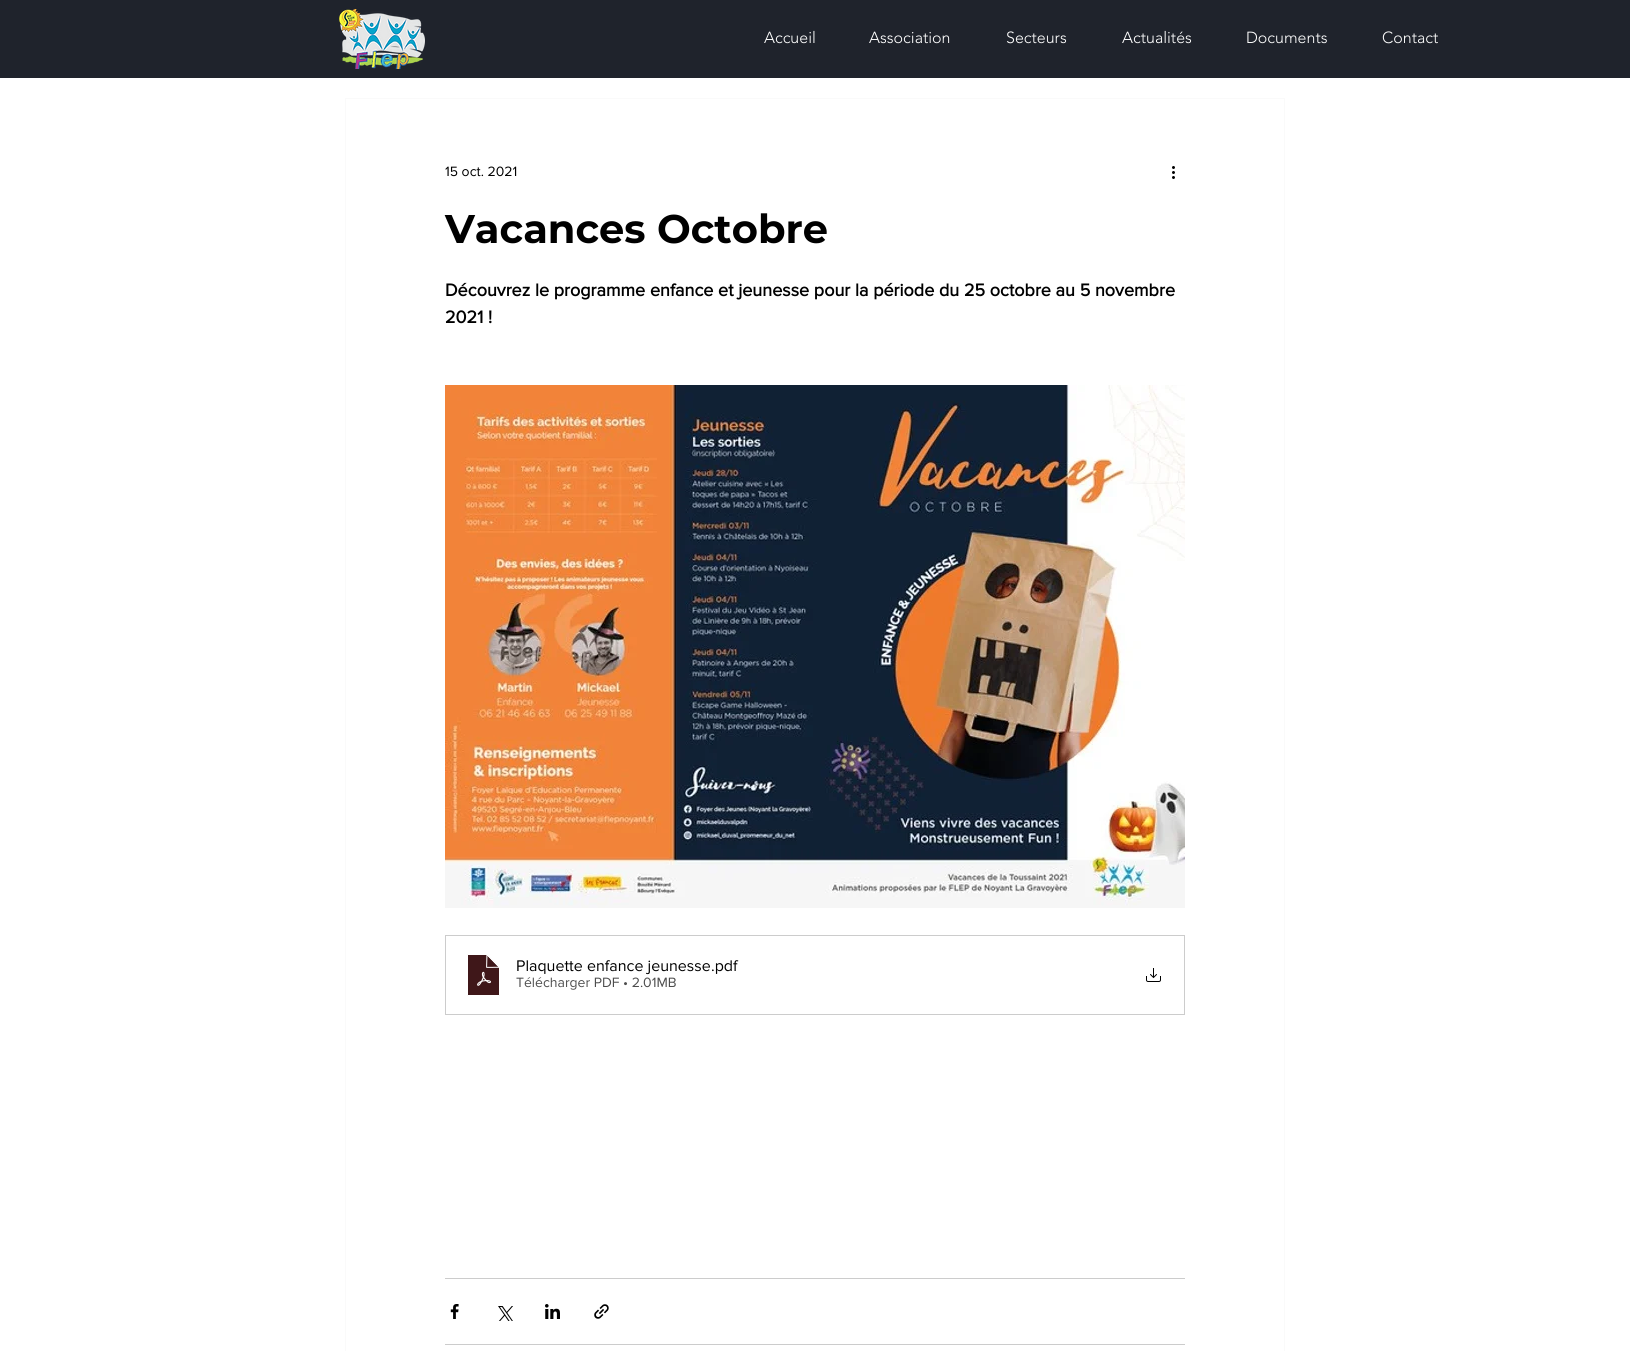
import math
import cairo



def draw_image(context, path, x, y, w, h):
    context.save()
    context.set_source_surface(cairo.ImageSurface.create_from_png(path), x, y)
    context.rectangle(x, y, w, h)
    context.fill()
    context.restore()


def draw(context):
    context.set_source_rgb(1, 1, 1)
    context.paint()
    context.set_source_rgb(31 / 255, 35 / 255, 44 / 255)
    context.rectangle(0, 0, 1630, 78)
    context.fill()
    draw_image(context, "images/1.png", 339, 9, 86, 60)
    context.rectangle(345.5, 98.5, 939, 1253)
    context.set_source_rgb(250 / 255, 250 / 255, 250 / 255)
    context.set_line_width(1)
    context.stroke()
    draw_image(context, "images/2.png", 1172, 166, 3, 13)
    draw_image(context, "images/3.png", 445, 385, 740, 523)
    context.rectangle(445.5, 935.5, 739, 79)
    context.set_source_rgb(204 / 255, 204 / 255, 204 / 255)
    context.stroke()
    draw_image(context, "images/4.png", 467, 954, 33, 42)
    draw_image(context, "images/5.png", 1146, 968, 15, 14)
    context.rectangle(445, 1278, 740, 1)
    context.fill()
    draw_image(context, "images/6.png", 450, 1304, 9, 15)
    draw_image(context, "images/7.png", 498, 1306, 15, 15)
    draw_image(context, "images/8.png", 545, 1304, 15, 15)
    draw_image(context, "images/9.png", 594, 1304, 15, 15)
    context.rectangle(445, 1344, 740, 1)
    context.fill()
    context.select_font_face("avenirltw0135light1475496 Light")
    context.set_font_size(16)
    context.set_source_rgb(1, 1, 1)
    context.move_to(764, 43)
    context.show_text("Accueil")
    context.move_to(869, 43)
    context.show_text("Association")
    context.move_to(1006, 43)
    context.show_text("Secteurs")
    context.move_to(1122, 43)
    context.show_text("Actualités")
    context.move_to(1246, 43)
    context.show_text("Documents")
    context.move_to(1382, 43)
    context.show_text("Contact")
    context.select_font_face("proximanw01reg")
    context.set_font_size(14)
    context.set_source_rgb(0, 0, 0)
    context.move_to(445, 176)
    context.show_text("15 oct. 2021")
    context.select_font_face("Montserrat", cairo.FontSlant.NORMAL, cairo.FontWeight.BOLD)
    context.set_font_size(40)
    context.move_to(445, 243)
    context.show_text("Vacances Octobre")
    context.select_font_face("proximanw01reg", cairo.FontSlant.NORMAL, cairo.FontWeight.BOLD)
    context.set_font_size(18)
    context.move_to(445, 296)
    context.show_text("Découvrez le programme enfance et jeunesse pour la période du 25 octobre au 5 novembre")
    context.move_to(445, 323)
    context.show_text("2021 !")
    context.select_font_face("proximanw01reg")
    context.set_font_size(16)
    context.move_to(516, 971)
    context.show_text("Plaquette enfance jeunesse")
    context.move_to(711, 971)
    context.show_text(".pdf")
    context.set_font_size(14)
    context.set_source_rgb(77 / 255, 77 / 255, 77 / 255)
    context.move_to(516, 987)
    context.show_text("Télécharger PDF • 2.01MB")


surface = cairo.ImageSurface(cairo.Format.RGB24, 1630, 1351)
context = cairo.Context(surface)
options = cairo.FontOptions()
options.set_hint_metrics(cairo.HintMetrics.OFF)
options.set_hint_style(cairo.HintStyle.NONE)
context.set_font_options(options)
context.set_miter_limit(4)
draw(context)
surface.write_to_png("out.png")
